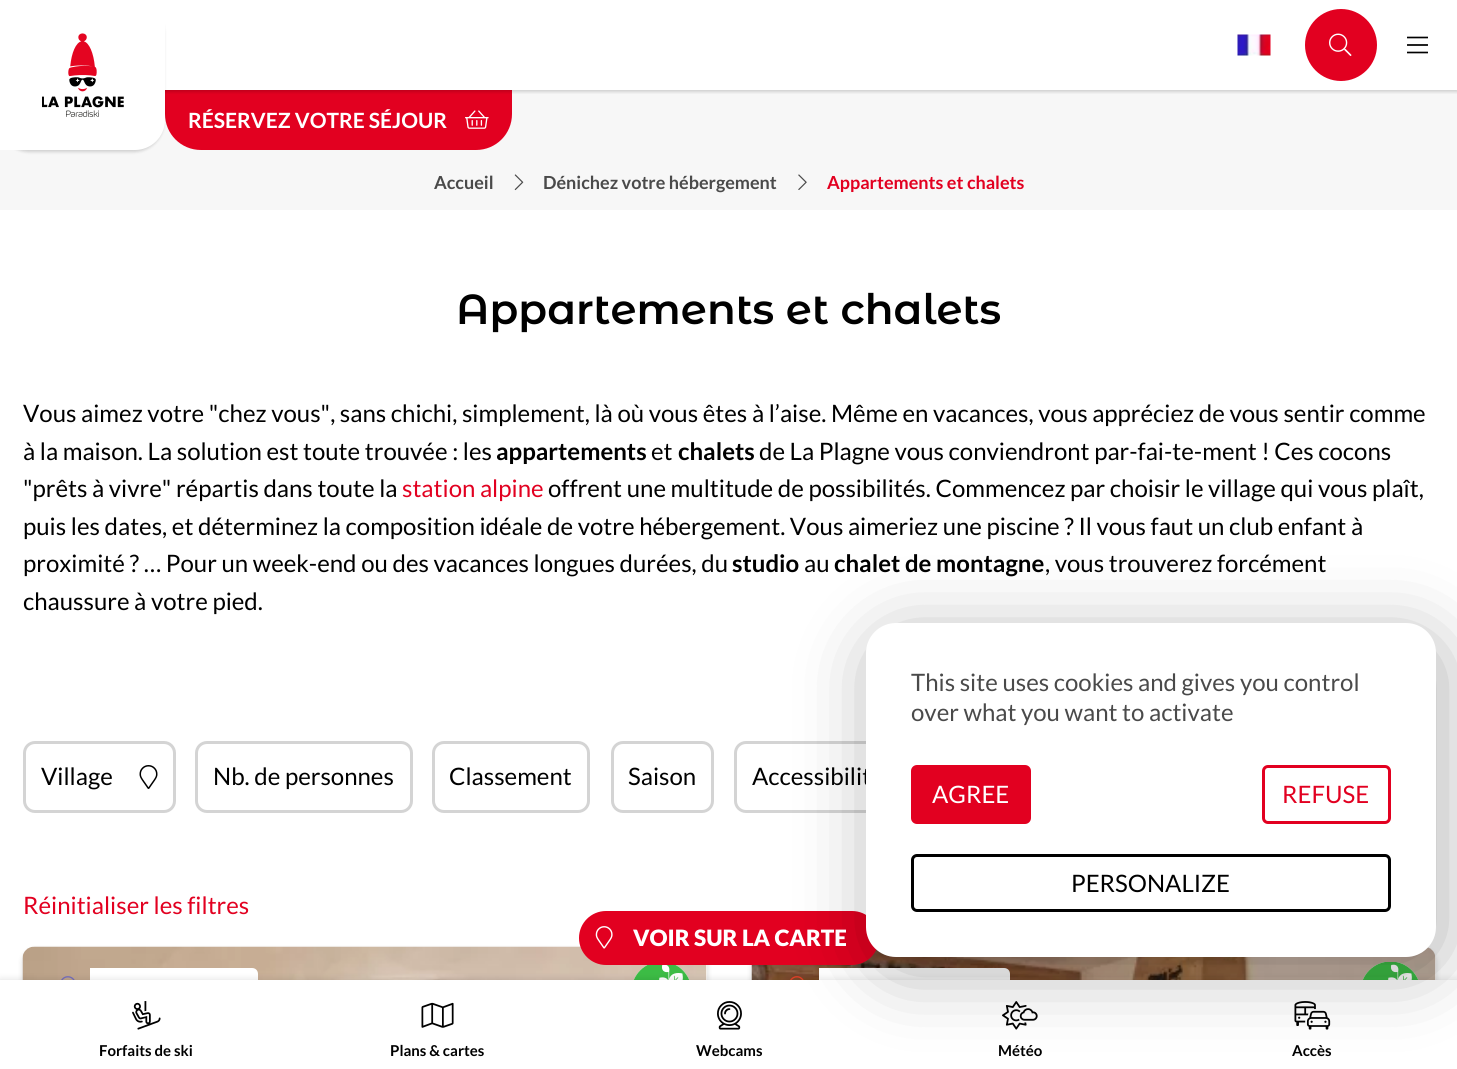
import math
import cairo



def rounded_rect(context, x, y, w, h, r):
    context.new_sub_path()
    for i, (u, v) in enumerate([(x + w - r, y + h - r), (x + r, y + h - r), (x + r, y + r), (x + w - r, y + r)]):
        context.arc(u, v, r, i * math.pi / 2, (i + 1) * math.pi / 2)
    context.close_path()


def draw_shadow(context, x, y, w, h, r, blur, alpha):
    context.push_group_with_content(cairo.Content.ALPHA)
    context.set_operator(cairo.Operator.SOURCE)
    for i in range(15, -16, -2):
        e = blur * i / 6
        if min(w, h) + 2 * e > 0:
            context.set_source_rgba(0, 0, 0, alpha * math.erfc((i - 1) / 8.5) / 2)
            rounded_rect(context, x - e, y - e, w + 2 * e, h + 2 * e, max(0, min(r + e + blur * .6, min(w, h) / 2 + e)))
            context.fill()
    context.mask(context.pop_group())


def draw_image(context, path, x, y, w, h):
    context.save()
    context.set_source_surface(cairo.ImageSurface.create_from_png(path), x, y)
    context.rectangle(x, y, w, h)
    context.fill()
    context.restore()


def draw(context):
    context.set_source_rgb(1, 1, 1)
    context.paint()
    context.set_source_rgb(247 / 255, 247 / 255, 247 / 255)
    context.rectangle(0, 90, 1457, 120)
    context.fill()
    context.set_source_rgb(226 / 255, 0, 32 / 255)
    context.new_path()
    context.move_to(165, 90)
    context.line_to(512, 90)
    context.line_to(512, 114)
    context.curve_to(512, 134, 496, 150, 476, 150)
    context.line_to(201, 150)
    context.curve_to(181, 150, 165, 134, 165, 114)
    context.close_path()
    context.fill()
    context.save()
    context.rectangle(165, 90, 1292, 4)
    context.clip()
    context.set_source_rgb(0, 0, 0)
    draw_shadow(context, 0, 2, 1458, 90, 0, 1.5, 0.16)
    context.restore()
    draw_image(context, "images/1.png", 1237, 34, 34, 22)
    context.arc(1341, 45, 35, 0, 2 * math.pi)
    context.fill_preserve()
    context.stroke()
    draw_image(context, "images/2.png", 1329, 33, 23, 23)
    draw_image(context, "images/3.png", 1407, 36, 21, 18)
    context.set_source_rgb(0, 0, 0)
    draw_shadow(context, -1, 2, 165, 150, 30, 1.5, 0.16)
    context.set_source_rgb(1, 1, 1)
    context.new_path()
    context.move_to(0, 0)
    context.line_to(165, 0)
    context.line_to(165, 120)
    context.curve_to(165, 136.5, 151.5, 150, 135, 150)
    context.line_to(0, 150)
    context.close_path()
    context.fill()
    draw_image(context, "images/4.png", 42, 33, 82, 84)
    draw_image(context, "images/5.png", 465, 110, 24, 19)
    draw_image(context, "images/6.png", 514, 174, 10, 17)
    draw_image(context, "images/7.png", 798, 174, 9, 16)
    context.set_source_rgb(0, 0, 0)
    draw_shadow(context, 23, 950, 684, 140, 12, 3, 0.16)
    context.set_source_rgb(1, 1, 1)
    rounded_rect(context, 23, 947, 684, 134, 12)
    context.fill()
    draw_image(context, "images/15.png", 22, 946, 685, 34)
    draw_image(context, "images/16.png", 633, 965, 57, 15)
    context.new_path()
    context.move_to(90, 968)
    context.line_to(252, 968)
    context.curve_to(255.5, 968, 258, 970.5, 258, 974)
    context.line_to(258, 1002)
    context.curve_to(258, 1005.5, 255.5, 1008, 252, 1008)
    context.line_to(90, 1008)
    context.close_path()
    context.fill()
    draw_image(context, "images/17.png", 61, 976, 14, 4)
    context.set_source_rgb(0, 0, 0)
    draw_shadow(context, 752, 950, 684, 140, 12, 3, 0.16)
    context.set_source_rgb(1, 1, 1)
    rounded_rect(context, 752, 947, 684, 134, 12)
    context.fill()
    draw_image(context, "images/18.png", 751, 947, 685, 33)
    draw_image(context, "images/19.png", 1362, 962, 57, 18)
    context.new_path()
    context.move_to(819, 968)
    context.line_to(1004, 968)
    context.curve_to(1007.5, 968, 1010, 970.5, 1010, 974)
    context.line_to(1010, 1002)
    context.curve_to(1010, 1005.5, 1007.5, 1008, 1004, 1008)
    context.line_to(819, 1008)
    context.close_path()
    context.fill()
    draw_image(context, "images/20.png", 790, 976, 14, 4)
    context.set_source_rgb(0, 0, 0)
    draw_shadow(context, 0, 981, 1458, 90, 0, 4.5, 0.16)
    context.set_source_rgb(1, 1, 1)
    context.rectangle(0, 980, 1457, 89)
    context.fill()
    draw_image(context, "images/8.png", 132, 1001, 29, 29)
    draw_image(context, "images/9.png", 421, 1002, 33, 26)
    draw_image(context, "images/10.png", 717, 1001, 25, 29)
    draw_image(context, "images/11.png", 1002, 1001, 36, 29)
    draw_image(context, "images/12.png", 1294, 1001, 37, 29)
    rounded_rect(context, 24.5, 742.5, 150, 69, 10.5)
    context.set_source_rgb(212 / 255, 212 / 255, 212 / 255)
    context.set_line_width(3)
    context.stroke()
    draw_image(context, "images/13.png", 139, 765, 19, 24)
    rounded_rect(context, 196.5, 742.5, 215, 69, 10.5)
    context.stroke()
    rounded_rect(context, 433.5, 742.5, 155, 69, 10.5)
    context.stroke()
    rounded_rect(context, 612.5, 742.5, 100, 69, 10.5)
    context.stroke()
    rounded_rect(context, 735.5, 742.5, 165, 69, 10.5)
    context.stroke()
    context.set_source_rgb(226 / 255, 0, 32 / 255)
    rounded_rect(context, 580, 912, 298, 52, 26)
    context.fill_preserve()
    context.set_line_width(2)
    context.stroke()
    draw_image(context, "images/14.png", 595, 926, 18, 23)
    context.set_source_rgb(0, 0, 0)
    draw_shadow(context, 873, 636, 570, 335, 30, 37.5, 0.3)
    context.select_font_face("Lato", cairo.FontSlant.NORMAL, cairo.FontWeight.BOLD)
    context.set_font_size(21)
    context.set_source_rgb(1, 1, 1)
    context.move_to(188, 128)
    context.show_text("RÉSERVEZ VOTRE SÉJOUR")
    context.set_font_size(18)
    context.set_source_rgb(74 / 255, 74 / 255, 74 / 255)
    context.move_to(434, 189)
    context.show_text("Accueil")
    context.move_to(543, 189)
    context.show_text("Dénichez votre hébergement")
    context.set_source_rgb(226 / 255, 0, 32 / 255)
    context.move_to(827, 189)
    context.show_text("Appartements et chalets")
    context.set_font_size(15)
    context.set_source_rgb(0, 0, 0)
    context.move_to(99, 1056)
    context.show_text("Forfaits de ski")
    context.move_to(390, 1056)
    context.show_text("Plans & cartes")
    context.move_to(696, 1056)
    context.show_text("Webcams")
    context.move_to(998, 1056)
    context.show_text("Météo")
    context.move_to(1292, 1056)
    context.show_text("Accès")
    context.select_font_face("Montserrat Alternates SemiBold")
    context.set_font_size(42)
    context.move_to(456, 324)
    context.show_text("Appartements et chalets")
    context.select_font_face("Lato")
    context.set_font_size(24)
    context.move_to(23, 422)
    context.show_text("Vous aimez votre \"chez vous\", sans chichi, simplement, là où vous êtes à l’aise. Même en vacances, vous appréciez de vous sentir comme")
    context.move_to(23, 460)
    context.show_text("à la maison. La solution est toute trouvée : les")
    context.select_font_face("Lato", cairo.FontSlant.NORMAL, cairo.FontWeight.BOLD)
    context.move_to(496, 460)
    context.show_text("appartements")
    context.select_font_face("Lato")
    context.move_to(651, 460)
    context.show_text("et")
    context.select_font_face("Lato", cairo.FontSlant.NORMAL, cairo.FontWeight.BOLD)
    context.move_to(678, 460)
    context.show_text("chalets")
    context.select_font_face("Lato")
    context.move_to(759, 460)
    context.show_text("de La Plagne vous conviendront par-fai-te-ment ! Ces cocons")
    context.move_to(23, 497)
    context.show_text("\"prêts à vivre\" répartis dans toute la")
    context.set_source_rgb(226 / 255, 0, 32 / 255)
    context.move_to(402, 497)
    context.show_text("station alpine")
    context.set_source_rgb(0, 0, 0)
    context.move_to(548, 497)
    context.show_text("offrent une multitude de possibilités. Commencez par choisir le village qui vous plaît,")
    context.move_to(23, 535)
    context.show_text("puis les dates, et déterminez la composition idéale de votre hébergement. Vous aimeriez une piscine ? Il vous faut un club enfant à")
    context.move_to(23, 572)
    context.show_text("proximité ? … Pour un week-end ou des vacances longues durées, du")
    context.select_font_face("Lato", cairo.FontSlant.NORMAL, cairo.FontWeight.BOLD)
    context.move_to(732, 572)
    context.show_text("studio")
    context.select_font_face("Lato")
    context.move_to(804, 572)
    context.show_text("au")
    context.select_font_face("Lato", cairo.FontSlant.NORMAL, cairo.FontWeight.BOLD)
    context.move_to(834, 572)
    context.show_text("chalet de montagne")
    context.select_font_face("Lato")
    context.move_to(1045, 572)
    context.show_text(", vous trouverez forcément")
    context.move_to(23, 610)
    context.show_text("chaussure à votre pied.")
    context.move_to(41, 785)
    context.show_text("Village")
    context.move_to(213, 785)
    context.show_text("Nb. de personnes")
    context.move_to(449, 785)
    context.show_text("Classement")
    context.move_to(628, 785)
    context.show_text("Saison")
    context.move_to(752, 785)
    context.show_text("Accessibilit")
    context.set_source_rgb(226 / 255, 0, 32 / 255)
    context.move_to(23, 914)
    context.show_text("Réinitialiser les filtres")
    context.select_font_face("Lato Black")
    context.set_font_size(22.5)
    context.set_source_rgb(1, 1, 1)
    context.move_to(633, 946)
    context.show_text("VOIR SUR LA CARTE")
    rounded_rect(context, 866, 623, 570, 334, 30)
    context.fill()
    context.select_font_face("Lato")
    context.set_font_size(24)
    context.set_source_rgb(74 / 255, 74 / 255, 74 / 255)
    context.move_to(911, 691)
    context.show_text("This site uses cookies and gives you control")
    context.move_to(911, 721)
    context.show_text("over what you want to activate")
    context.set_source_rgb(226 / 255, 0, 32 / 255)
    rounded_rect(context, 912.5, 766.5, 117, 56, 4.5)
    context.fill_preserve()
    context.set_line_width(3)
    context.stroke()
    context.set_source_rgb(1, 1, 1)
    context.move_to(932, 803)
    context.show_text("AGREE")
    rounded_rect(context, 1263.5, 766.5, 126, 56, 4.5)
    context.set_source_rgb(226 / 255, 0, 32 / 255)
    context.stroke()
    context.move_to(1282, 803)
    context.show_text("REFUSE")
    rounded_rect(context, 912.5, 855.5, 477, 55, 4.5)
    context.set_source_rgb(0, 0, 0)
    context.stroke()
    context.move_to(1071, 892)
    context.show_text("PERSONALIZE")


surface = cairo.ImageSurface(cairo.Format.RGB24, 1457, 1069)
context = cairo.Context(surface)
options = cairo.FontOptions()
options.set_hint_metrics(cairo.HintMetrics.OFF)
options.set_hint_style(cairo.HintStyle.NONE)
context.set_font_options(options)
context.set_miter_limit(4)
draw(context)
surface.write_to_png("out.png")
